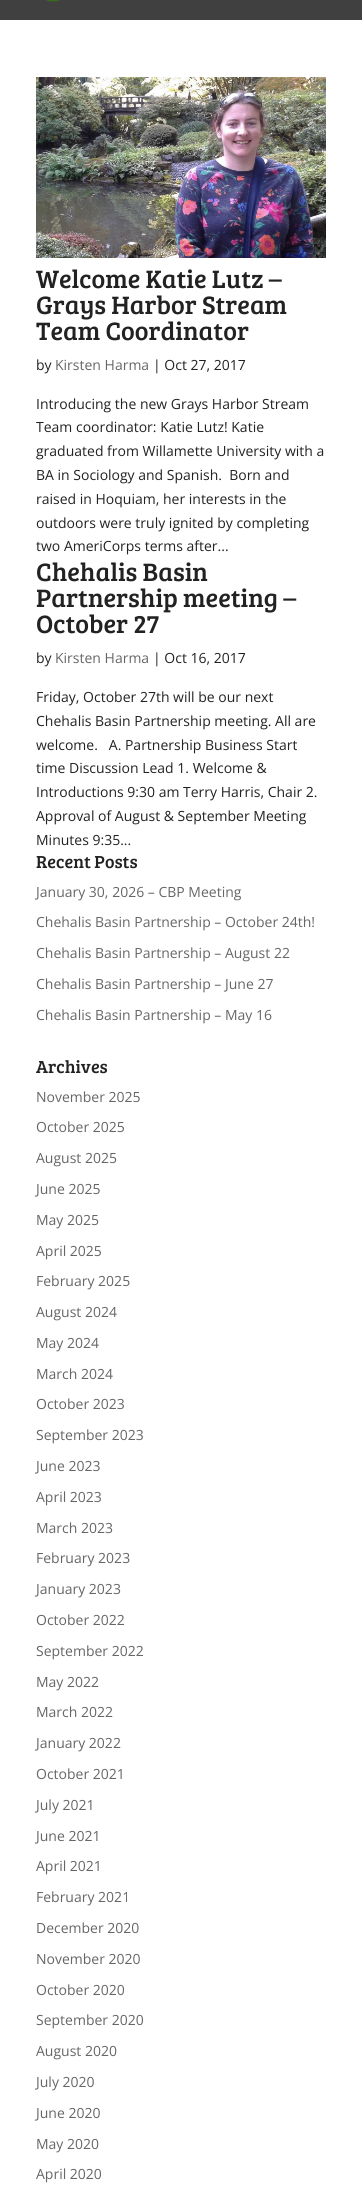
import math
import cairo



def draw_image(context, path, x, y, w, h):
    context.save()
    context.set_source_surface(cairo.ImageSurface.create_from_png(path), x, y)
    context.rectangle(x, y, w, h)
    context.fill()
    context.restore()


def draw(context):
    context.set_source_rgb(1, 1, 1)
    context.paint()
    context.set_source_rgb(64 / 255, 64 / 255, 64 / 255)
    context.rectangle(0, 0, 362, 20)
    context.fill()
    draw_image(context, "images/1.png", 46, 0, 14, 2)
    draw_image(context, "images/2.png", 36, 77, 290, 181)
    context.select_font_face("Bree Serif")
    context.set_font_size(26)
    context.set_source_rgb(34 / 255, 34 / 255, 34 / 255)
    context.move_to(36, 288)
    context.show_text("Welcome Katie Lutz –")
    context.move_to(36, 314)
    context.show_text("Grays Harbor Stream")
    context.move_to(36, 340)
    context.show_text("Team Coordinator")
    context.select_font_face("Open Sans")
    context.set_font_size(14)
    context.move_to(36, 370)
    context.show_text("by")
    context.set_source_rgb(102 / 255, 102 / 255, 102 / 255)
    context.move_to(55, 370)
    context.show_text("Kirsten Harma")
    context.set_source_rgb(34 / 255, 34 / 255, 34 / 255)
    context.move_to(153, 370)
    context.show_text("| Oct 27, 2017")
    context.move_to(36, 409)
    context.show_text("Introducing the new Grays Harbor Stream")
    context.move_to(36, 432)
    context.show_text("Team coordinator: Katie Lutz! Katie")
    context.move_to(36, 456)
    context.show_text("graduated from Willamette University with a")
    context.move_to(36, 480)
    context.show_text("BA in Sociology and Spanish.  Born and")
    context.move_to(36, 504)
    context.show_text("raised in Hoquiam, her interests in the")
    context.move_to(36, 528)
    context.show_text("outdoors were truly ignited by completing")
    context.move_to(36, 551)
    context.show_text("two AmeriCorps terms after...")
    context.select_font_face("Bree Serif")
    context.set_font_size(26)
    context.move_to(36, 581)
    context.show_text("Chehalis Basin")
    context.move_to(36, 607)
    context.show_text("Partnership meeting –")
    context.move_to(36, 633)
    context.show_text("October 27")
    context.select_font_face("Open Sans")
    context.set_font_size(14)
    context.move_to(36, 663)
    context.show_text("by")
    context.set_source_rgb(102 / 255, 102 / 255, 102 / 255)
    context.move_to(55, 663)
    context.show_text("Kirsten Harma")
    context.set_source_rgb(34 / 255, 34 / 255, 34 / 255)
    context.move_to(153, 663)
    context.show_text("| Oct 16, 2017")
    context.move_to(36, 702)
    context.show_text("Friday, October 27th will be our next")
    context.move_to(36, 726)
    context.show_text("Chehalis Basin Partnership meeting. All are")
    context.move_to(36, 750)
    context.show_text("welcome.   A. Partnership Business Start")
    context.move_to(36, 773)
    context.show_text("time Discussion Lead 1. Welcome &")
    context.move_to(36, 797)
    context.show_text("Introductions 9:30 am Terry Harris, Chair 2.")
    context.move_to(36, 821)
    context.show_text("Approval of August & September Meeting")
    context.move_to(36, 845)
    context.show_text("Minutes 9:35...")
    context.select_font_face("Bree Serif")
    context.set_font_size(18)
    context.move_to(36, 868)
    context.show_text("Recent Posts")
    context.select_font_face("Open Sans")
    context.set_font_size(14)
    context.set_source_rgb(102 / 255, 102 / 255, 102 / 255)
    context.move_to(36, 897)
    context.show_text("January 30, 2026 – CBP Meeting")
    context.move_to(36, 927)
    context.show_text("Chehalis Basin Partnership – October 24th!")
    context.move_to(36, 958)
    context.show_text("Chehalis Basin Partnership – August 22")
    context.move_to(36, 989)
    context.show_text("Chehalis Basin Partnership – June 27")
    context.move_to(36, 1020)
    context.show_text("Chehalis Basin Partnership – May 16")
    context.select_font_face("Bree Serif")
    context.set_font_size(18)
    context.set_source_rgb(34 / 255, 34 / 255, 34 / 255)
    context.move_to(36, 1073)
    context.show_text("Archives")
    context.select_font_face("Open Sans")
    context.set_font_size(14)
    context.set_source_rgb(102 / 255, 102 / 255, 102 / 255)
    context.move_to(36, 1102)
    context.show_text("November 2025")
    context.move_to(36, 1132)
    context.show_text("October 2025")
    context.move_to(36, 1163)
    context.show_text("August 2025")
    context.move_to(36, 1194)
    context.show_text("June 2025")
    context.move_to(36, 1225)
    context.show_text("May 2025")
    context.move_to(36, 1256)
    context.show_text("April 2025")
    context.move_to(36, 1286)
    context.show_text("February 2025")
    context.move_to(36, 1317)
    context.show_text("August 2024")
    context.move_to(36, 1348)
    context.show_text("May 2024")
    context.move_to(36, 1379)
    context.show_text("March 2024")
    context.move_to(36, 1409)
    context.show_text("October 2023")
    context.move_to(36, 1440)
    context.show_text("September 2023")
    context.move_to(36, 1471)
    context.show_text("June 2023")
    context.move_to(36, 1502)
    context.show_text("April 2023")
    context.move_to(36, 1533)
    context.show_text("March 2023")
    context.move_to(36, 1563)
    context.show_text("February 2023")
    context.move_to(36, 1594)
    context.show_text("January 2023")
    context.move_to(36, 1625)
    context.show_text("October 2022")
    context.move_to(36, 1656)
    context.show_text("September 2022")
    context.move_to(36, 1687)
    context.show_text("May 2022")
    context.move_to(36, 1717)
    context.show_text("March 2022")
    context.move_to(36, 1748)
    context.show_text("January 2022")
    context.move_to(36, 1779)
    context.show_text("October 2021")
    context.move_to(36, 1810)
    context.show_text("July 2021")
    context.move_to(36, 1841)
    context.show_text("June 2021")
    context.move_to(36, 1871)
    context.show_text("April 2021")
    context.move_to(36, 1902)
    context.show_text("February 2021")
    context.move_to(36, 1933)
    context.show_text("December 2020")
    context.move_to(36, 1964)
    context.show_text("November 2020")
    context.move_to(36, 1995)
    context.show_text("October 2020")
    context.move_to(36, 2025)
    context.show_text("September 2020")
    context.move_to(36, 2056)
    context.show_text("August 2020")
    context.move_to(36, 2087)
    context.show_text("July 2020")
    context.move_to(36, 2118)
    context.show_text("June 2020")
    context.move_to(36, 2149)
    context.show_text("May 2020")
    context.move_to(36, 2179)
    context.show_text("April 2020")


surface = cairo.ImageSurface(cairo.Format.RGB24, 362, 2197)
context = cairo.Context(surface)
options = cairo.FontOptions()
options.set_hint_metrics(cairo.HintMetrics.OFF)
options.set_hint_style(cairo.HintStyle.NONE)
context.set_font_options(options)
context.set_miter_limit(4)
draw(context)
surface.write_to_png("out.png")
